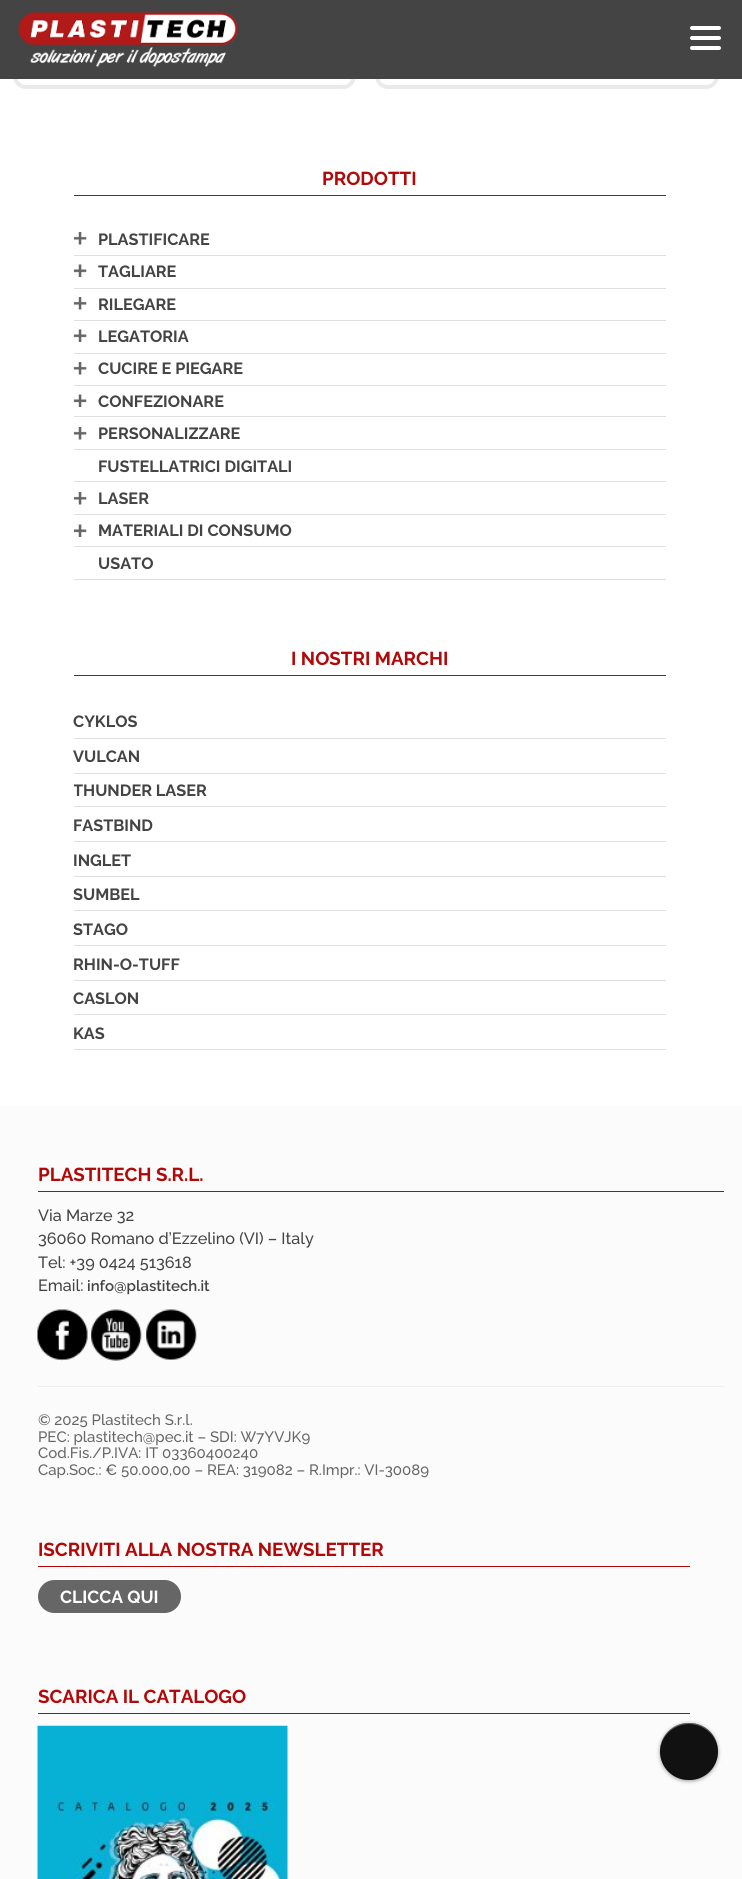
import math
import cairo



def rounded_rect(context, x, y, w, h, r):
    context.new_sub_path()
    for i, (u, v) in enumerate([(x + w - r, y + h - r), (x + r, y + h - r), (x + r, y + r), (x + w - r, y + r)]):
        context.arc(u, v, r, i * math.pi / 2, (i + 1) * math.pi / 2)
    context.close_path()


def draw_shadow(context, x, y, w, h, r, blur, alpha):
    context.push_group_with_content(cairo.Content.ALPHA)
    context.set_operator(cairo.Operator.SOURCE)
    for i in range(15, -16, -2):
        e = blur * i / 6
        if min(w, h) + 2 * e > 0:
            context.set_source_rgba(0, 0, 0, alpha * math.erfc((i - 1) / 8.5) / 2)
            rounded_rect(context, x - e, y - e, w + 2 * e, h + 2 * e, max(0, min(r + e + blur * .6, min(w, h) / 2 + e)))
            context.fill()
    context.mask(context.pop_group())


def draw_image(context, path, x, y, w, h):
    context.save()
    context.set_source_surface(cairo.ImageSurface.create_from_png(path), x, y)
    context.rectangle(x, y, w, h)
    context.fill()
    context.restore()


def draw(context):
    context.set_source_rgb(1, 1, 1)
    context.paint()
    rounded_rect(context, 15, -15, 339, 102, 11)
    context.set_source_rgb(234 / 255, 234 / 255, 234 / 255)
    context.set_line_width(4)
    context.stroke()
    rounded_rect(context, 377, -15, 340, 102, 11)
    context.stroke()
    context.set_source_rgb(68 / 255, 68 / 255, 68 / 255)
    context.rectangle(0, 0, 742, 79)
    context.fill()
    context.set_source_rgb(1, 1, 1)
    rounded_rect(context, 690, 46, 31, 4, 2)
    context.fill()
    rounded_rect(context, 690, 26, 31, 4, 2)
    context.fill()
    rounded_rect(context, 690, 36, 31, 4, 2)
    context.fill()
    draw_image(context, "images/1.png", 18, 12, 220, 55)
    context.set_source_rgb(178 / 255, 8 / 255, 8 / 255)
    context.rectangle(74, 195, 592, 1)
    context.fill()
    draw_image(context, "images/2.png", 73, 232, 14, 13)
    context.set_source_rgb(224 / 255, 224 / 255, 224 / 255)
    context.rectangle(74, 255, 592, 1)
    context.fill()
    draw_image(context, "images/3.png", 73, 264, 14, 13)
    context.rectangle(74, 288, 592, 1)
    context.fill()
    draw_image(context, "images/4.png", 73, 297, 14, 13)
    context.rectangle(74, 320, 592, 1)
    context.fill()
    draw_image(context, "images/3.png", 73, 329, 14, 13)
    context.rectangle(74, 353, 592, 1)
    context.fill()
    draw_image(context, "images/2.png", 73, 362, 14, 13)
    context.rectangle(74, 385, 592, 1)
    context.fill()
    draw_image(context, "images/3.png", 73, 394, 14, 13)
    context.rectangle(74, 416, 592, 1)
    context.fill()
    draw_image(context, "images/2.png", 73, 427, 14, 13)
    context.rectangle(74, 449, 592, 1)
    context.fill()
    context.rectangle(74, 481, 592, 1)
    context.fill()
    draw_image(context, "images/2.png", 73, 492, 14, 13)
    context.rectangle(74, 514, 592, 1)
    context.fill()
    draw_image(context, "images/3.png", 73, 524, 14, 13)
    context.rectangle(74, 546, 592, 1)
    context.fill()
    context.rectangle(74, 579, 592, 1)
    context.fill()
    context.set_source_rgb(178 / 255, 8 / 255, 8 / 255)
    context.rectangle(74, 675, 592, 1)
    context.fill()
    context.set_source_rgb(224 / 255, 224 / 255, 224 / 255)
    context.rectangle(74, 738, 592, 1)
    context.fill()
    context.rectangle(74, 773, 592, 1)
    context.fill()
    context.rectangle(74, 806, 592, 1)
    context.fill()
    context.rectangle(74, 841, 592, 1)
    context.fill()
    context.rectangle(74, 876, 592, 1)
    context.fill()
    context.rectangle(74, 910, 592, 1)
    context.fill()
    context.rectangle(74, 945, 592, 1)
    context.fill()
    context.rectangle(74, 980, 592, 1)
    context.fill()
    context.rectangle(74, 1014, 592, 1)
    context.fill()
    context.rectangle(74, 1049, 592, 1)
    context.fill()
    context.set_source_rgb(251 / 255, 251 / 255, 251 / 255)
    context.rectangle(0, 1106, 742, 773)
    context.fill()
    context.set_source_rgb(178 / 255, 8 / 255, 8 / 255)
    context.rectangle(38, 1191, 686, 1)
    context.fill()
    draw_image(context, "images/5.png", 37, 1309, 51, 52)
    draw_image(context, "images/6.png", 91, 1309, 51, 52)
    draw_image(context, "images/7.png", 146, 1309, 51, 51)
    context.set_source_rgb(238 / 255, 238 / 255, 238 / 255)
    context.rectangle(38, 1386, 686, 1)
    context.fill()
    context.set_source_rgb(178 / 255, 8 / 255, 8 / 255)
    context.rectangle(38, 1566, 652, 1)
    context.fill()
    context.set_source_rgb(102 / 255, 102 / 255, 102 / 255)
    rounded_rect(context, 38, 1580, 143, 33, 16.5)
    context.fill()
    context.set_source_rgb(178 / 255, 8 / 255, 8 / 255)
    context.rectangle(38, 1713, 652, 1)
    context.fill()
    draw_image(context, "images/8.png", 37, 1725, 251, 154)
    context.set_source_rgb(0, 0, 0)
    draw_shadow(context, 660, 1724, 58, 57, 28.5, 2, 0.4)
    context.set_source_rgb(17 / 255, 17 / 255, 17 / 255)
    rounded_rect(context, 660, 1723, 58, 57, 28.5)
    context.fill()
    context.set_source_rgba(1, 1, 1, 0.4)
    context.new_path()
    context.move_to(689, 1724)
    context.curve_to(705, 1724, 718, 1737, 718, 1752)
    context.curve_to(718, 1746, 716, 1740, 713, 1736)
    context.curve_to(697, 1712, 660, 1723, 660, 1752)
    context.curve_to(660, 1737, 673, 1724, 689, 1724)
    context.close_path()
    context.fill()
    rounded_rect(context, 660.5, 1723.5, 57, 56, 28)
    context.set_source_rgba(0, 0, 0, 0.2)
    context.set_line_width(1)
    context.stroke()
    context.select_font_face("Raleway Thin")
    context.set_font_size(18.75)
    context.set_source_rgb(178 / 255, 8 / 255, 8 / 255)
    context.move_to(322, 185)
    context.show_text("PRODOTTI")
    context.set_font_size(16.25)
    context.set_source_rgb(68 / 255, 68 / 255, 68 / 255)
    context.move_to(98, 245)
    context.show_text("PLASTIFICARE")
    context.move_to(98, 277)
    context.show_text("TAGLIARE")
    context.move_to(98, 310)
    context.show_text("RILEGARE")
    context.move_to(98, 342)
    context.show_text("LEGATORIA")
    context.move_to(98, 374)
    context.show_text("CUCIRE E PIEGARE")
    context.move_to(98, 407)
    context.show_text("CONFEZIONARE")
    context.move_to(98, 439)
    context.show_text("PERSONALIZZARE")
    context.move_to(98, 472)
    context.show_text("FUSTELLATRICI DIGITALI")
    context.move_to(98, 504)
    context.show_text("LASER")
    context.move_to(98, 536)
    context.show_text("MATERIALI DI CONSUMO")
    context.move_to(98, 569)
    context.show_text("USATO")
    context.set_font_size(18.75)
    context.set_source_rgb(178 / 255, 8 / 255, 8 / 255)
    context.move_to(291, 665)
    context.show_text("I NOSTRI MARCHI")
    context.set_font_size(16.25)
    context.set_source_rgb(68 / 255, 68 / 255, 68 / 255)
    context.move_to(73, 727)
    context.show_text("CYKLOS")
    context.move_to(73, 762)
    context.show_text("VULCAN")
    context.save()
    context.rectangle(74, 704, 592, 346)
    context.clip()
    context.move_to(73, 796)
    context.show_text("THUNDER LASER")
    context.restore()
    context.move_to(73, 831)
    context.show_text("FASTBIND")
    context.move_to(73, 866)
    context.show_text("INGLET")
    context.move_to(73, 900)
    context.show_text("SUMBEL")
    context.move_to(73, 935)
    context.show_text("STAGO")
    context.move_to(73, 970)
    context.show_text("RHIN-O-TUFF")
    context.move_to(73, 1004)
    context.show_text("CASLON")
    context.move_to(73, 1039)
    context.show_text("KAS")
    context.set_font_size(18.75)
    context.set_source_rgb(178 / 255, 8 / 255, 8 / 255)
    context.move_to(38, 1181)
    context.show_text("PLASTITECH S.R.L.")
    context.select_font_face("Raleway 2 Thin")
    context.set_font_size(16.25)
    context.set_source_rgb(68 / 255, 68 / 255, 68 / 255)
    context.move_to(38, 1221)
    context.show_text("Via Marze 32")
    context.move_to(38, 1244)
    context.show_text("36060 Romano d’Ezzelino (VI) – Italy")
    context.move_to(38, 1268)
    context.show_text("Tel: +39 0424 513618")
    context.move_to(38, 1291)
    context.show_text("Email:")
    context.select_font_face("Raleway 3 Thin")
    context.set_font_size(15)
    context.move_to(87, 1291)
    context.show_text("info@plastitech.it")
    context.select_font_face("Raleway 2 Thin")
    context.set_source_rgb(102 / 255, 102 / 255, 102 / 255)
    context.move_to(38, 1425)
    context.show_text("© 2025 Plastitech S.r.l.")
    context.move_to(38, 1442)
    context.show_text("PEC: plastitech@pec.it – SDI: W7YVJK9")
    context.move_to(38, 1458)
    context.show_text("Cod.Fis./P.IVA: IT 03360400240")
    context.move_to(38, 1475)
    context.show_text("Cap.Soc.: € 50.000,00 – REA: 319082 – R.Impr.: VI-30089")
    context.select_font_face("Raleway Thin")
    context.set_font_size(18.75)
    context.set_source_rgb(178 / 255, 8 / 255, 8 / 255)
    context.move_to(38, 1556)
    context.show_text("ISCRIVITI ALLA NOSTRA NEWSLETTER")
    context.set_font_size(17.5)
    context.set_source_rgb(1, 1, 1)
    context.move_to(60, 1603)
    context.show_text("CLICCA QUI")
    context.set_font_size(18.75)
    context.set_source_rgb(178 / 255, 8 / 255, 8 / 255)
    context.move_to(38, 1703)
    context.show_text("SCARICA IL CATALOGO")


surface = cairo.ImageSurface(cairo.Format.RGB24, 742, 1879)
context = cairo.Context(surface)
options = cairo.FontOptions()
options.set_hint_metrics(cairo.HintMetrics.OFF)
options.set_hint_style(cairo.HintStyle.NONE)
context.set_font_options(options)
context.set_miter_limit(4)
draw(context)
surface.write_to_png("out.png")
